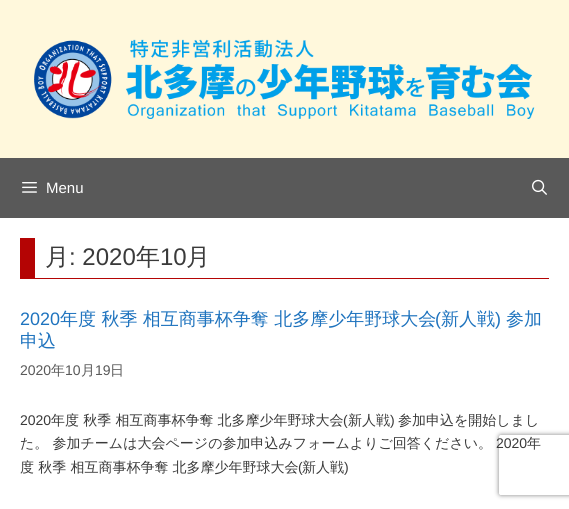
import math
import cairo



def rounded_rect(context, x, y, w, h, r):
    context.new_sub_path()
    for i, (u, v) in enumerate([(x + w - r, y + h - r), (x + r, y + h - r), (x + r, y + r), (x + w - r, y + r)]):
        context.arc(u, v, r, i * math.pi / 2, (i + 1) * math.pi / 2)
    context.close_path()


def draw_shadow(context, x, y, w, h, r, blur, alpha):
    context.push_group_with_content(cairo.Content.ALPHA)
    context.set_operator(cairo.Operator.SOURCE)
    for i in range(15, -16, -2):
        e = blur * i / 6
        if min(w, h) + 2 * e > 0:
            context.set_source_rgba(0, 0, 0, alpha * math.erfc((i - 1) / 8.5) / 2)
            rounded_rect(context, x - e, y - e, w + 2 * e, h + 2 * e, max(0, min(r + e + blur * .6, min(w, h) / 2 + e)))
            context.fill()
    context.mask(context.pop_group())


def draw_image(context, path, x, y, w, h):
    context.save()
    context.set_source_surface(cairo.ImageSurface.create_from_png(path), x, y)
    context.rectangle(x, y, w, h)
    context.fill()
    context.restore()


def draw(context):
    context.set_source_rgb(89 / 255, 89 / 255, 89 / 255)
    context.paint()
    context.set_source_rgb(1, 248 / 255, 220 / 255)
    context.rectangle(0, 0, 569, 158)
    context.fill()
    draw_image(context, "images/1.png", 34, 39, 501, 80)
    draw_image(context, "images/2.png", 22, 182, 15, 11)
    draw_image(context, "images/3.png", 532, 179, 15, 16)
    context.set_source_rgb(1, 1, 1)
    context.rectangle(0, 218, 569, 291)
    context.fill()
    context.set_source_rgb(180 / 255, 4 / 255, 4 / 255)
    context.rectangle(35, 278, 514, 1)
    context.fill()
    context.rectangle(20, 238, 15, 41)
    context.fill()
    context.save()
    context.set_fill_rule(cairo.FillRule.EVEN_ODD)
    context.new_path()
    context.move_to(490, 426)
    context.line_to(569, 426)
    context.line_to(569, 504)
    context.line_to(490, 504)
    context.close_path()
    context.move_to(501, 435)
    context.line_to(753, 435)
    context.curve_to(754, 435, 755, 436, 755, 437)
    context.line_to(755, 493)
    context.curve_to(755, 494, 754, 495, 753, 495)
    context.line_to(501, 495)
    context.curve_to(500, 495, 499, 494, 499, 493)
    context.line_to(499, 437)
    context.curve_to(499, 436, 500, 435, 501, 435)
    context.close_path()
    context.clip()
    context.set_source_rgb(128 / 255, 128 / 255, 128 / 255)
    draw_shadow(context, 499, 435, 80, 60, 2, 2.5, 1)
    context.restore()
    context.select_font_face("Liberation Sans")
    context.set_font_size(15)
    context.set_source_rgb(1, 1, 1)
    context.move_to(46, 193)
    context.show_text("Menu")
    context.select_font_face("WenQuanYi Zen Hei Medium")
    context.set_font_size(24)
    context.set_source_rgb(58 / 255, 58 / 255, 58 / 255)
    context.move_to(45, 265)
    context.show_text("月")
    context.select_font_face("Liberation Sans")
    context.move_to(69, 265)
    context.show_text(": 2020")
    context.select_font_face("WenQuanYi Zen Hei Medium")
    context.move_to(136, 265)
    context.show_text("年")
    context.select_font_face("Liberation Sans")
    context.move_to(160, 265)
    context.show_text("10")
    context.select_font_face("WenQuanYi Zen Hei Medium")
    context.move_to(186, 265)
    context.show_text("月")
    context.select_font_face("Liberation Sans")
    context.set_font_size(18)
    context.set_source_rgb(30 / 255, 115 / 255, 190 / 255)
    context.move_to(20, 325)
    context.show_text("2020")
    context.select_font_face("WenQuanYi Zen Hei Medium")
    context.move_to(60, 325)
    context.show_text("年度 秋季 相互商事杯争奪 北多摩少年野球大会")
    context.select_font_face("Liberation Sans")
    context.move_to(435, 325)
    context.show_text("(")
    context.select_font_face("WenQuanYi Zen Hei Medium")
    context.move_to(441, 325)
    context.show_text("新人戦")
    context.select_font_face("Liberation Sans")
    context.move_to(495, 325)
    context.show_text(")")
    context.select_font_face("WenQuanYi Zen Hei Medium")
    context.move_to(506, 325)
    context.show_text("参加")
    context.move_to(20, 347)
    context.show_text("申込")
    context.select_font_face("Liberation Sans")
    context.set_font_size(14)
    context.set_source_rgb(89 / 255, 89 / 255, 89 / 255)
    context.move_to(20, 375)
    context.show_text("2020")
    context.select_font_face("WenQuanYi Zen Hei Medium")
    context.move_to(51, 375)
    context.show_text("年")
    context.select_font_face("Liberation Sans")
    context.move_to(65, 375)
    context.show_text("10")
    context.select_font_face("WenQuanYi Zen Hei Medium")
    context.move_to(81, 375)
    context.show_text("月")
    context.select_font_face("Liberation Sans")
    context.move_to(95, 375)
    context.show_text("19")
    context.select_font_face("WenQuanYi Zen Hei Medium")
    context.move_to(110, 375)
    context.show_text("日")
    context.select_font_face("Liberation Sans")
    context.set_source_rgb(58 / 255, 58 / 255, 58 / 255)
    context.move_to(20, 425)
    context.show_text("2020")
    context.select_font_face("WenQuanYi Zen Hei Medium")
    context.move_to(51, 425)
    context.show_text("年度 秋季 相互商事杯争奪 北多摩少年野球大会")
    context.select_font_face("Liberation Sans")
    context.move_to(343, 425)
    context.show_text("(")
    context.select_font_face("WenQuanYi Zen Hei Medium")
    context.move_to(348, 425)
    context.show_text("新人戦")
    context.select_font_face("Liberation Sans")
    context.move_to(390, 425)
    context.show_text(")")
    context.select_font_face("WenQuanYi Zen Hei Medium")
    context.move_to(398, 425)
    context.show_text("参加申込を開始しまし")
    context.move_to(20, 448)
    context.show_text("た。 参加チームは大会ページの参加申込みフォームよりご回答ください。")
    context.select_font_face("Liberation Sans")
    context.move_to(496, 448)
    context.show_text("2020")
    context.select_font_face("WenQuanYi Zen Hei Medium")
    context.move_to(527, 448)
    context.show_text("年")
    context.move_to(20, 472)
    context.show_text("度 秋季 相互商事杯争奪 北多摩少年野球大会")
    context.select_font_face("Liberation Sans")
    context.move_to(298, 472)
    context.show_text("(")
    context.select_font_face("WenQuanYi Zen Hei Medium")
    context.move_to(302, 472)
    context.show_text("新人戦")
    context.select_font_face("Liberation Sans")
    context.move_to(344, 472)
    context.show_text(")")


surface = cairo.ImageSurface(cairo.Format.RGB24, 569, 509)
context = cairo.Context(surface)
options = cairo.FontOptions()
options.set_hint_metrics(cairo.HintMetrics.OFF)
options.set_hint_style(cairo.HintStyle.NONE)
context.set_font_options(options)
context.set_miter_limit(4)
draw(context)
surface.write_to_png("out.png")
